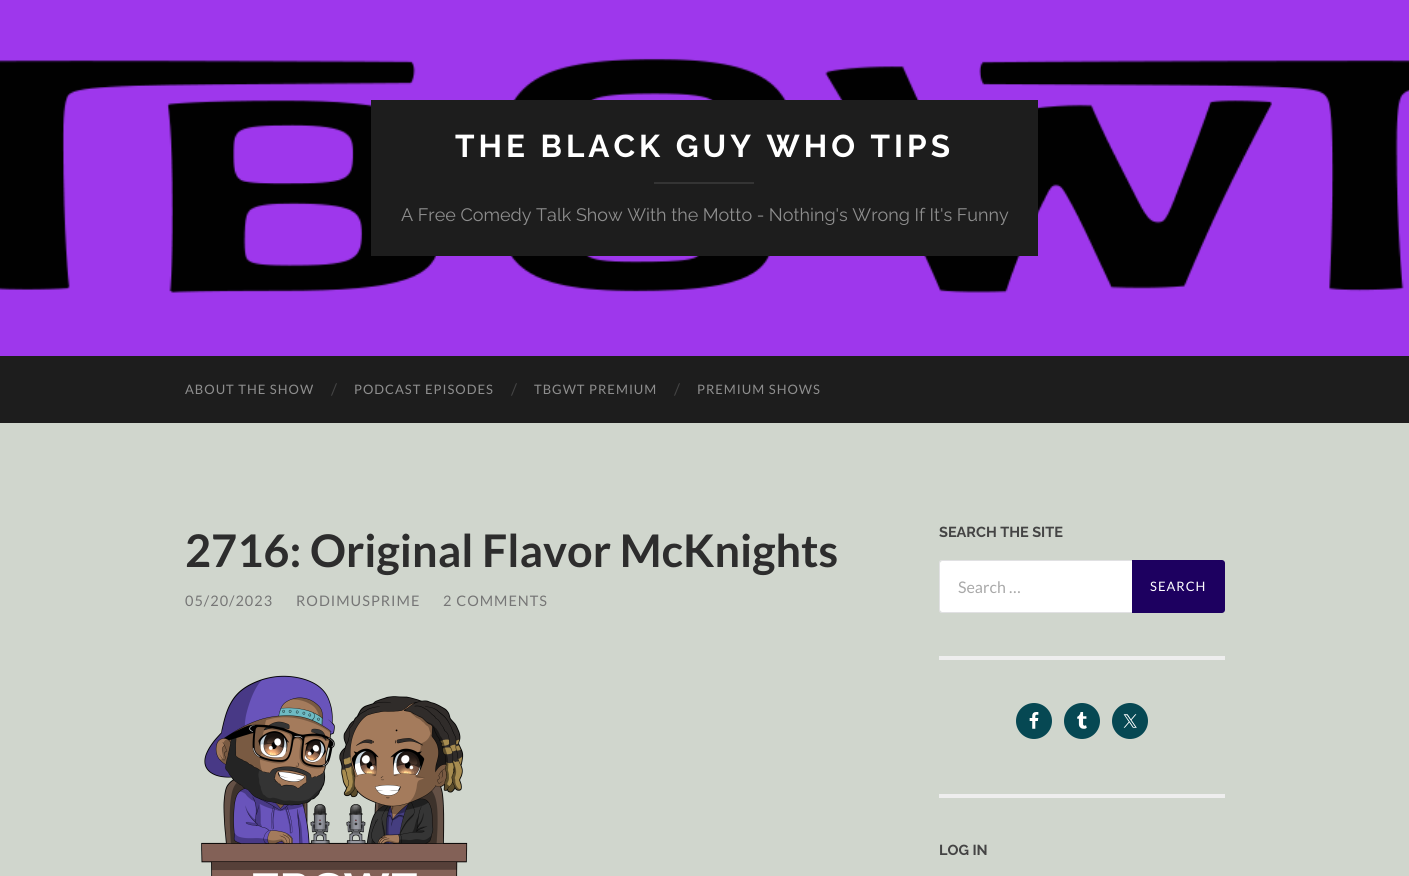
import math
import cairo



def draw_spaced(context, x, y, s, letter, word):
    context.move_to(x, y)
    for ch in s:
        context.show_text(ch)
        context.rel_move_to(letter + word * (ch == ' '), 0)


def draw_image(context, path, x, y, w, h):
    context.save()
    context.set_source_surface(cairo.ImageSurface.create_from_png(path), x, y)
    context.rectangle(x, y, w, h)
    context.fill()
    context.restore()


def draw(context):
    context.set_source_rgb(208 / 255, 214 / 255, 205 / 255)
    context.paint()
    draw_image(context, "images/1.png", 0, 0, 1409, 356)
    context.set_source_rgb(29 / 255, 29 / 255, 29 / 255)
    context.rectangle(371, 100, 667, 156)
    context.fill()
    context.set_source_rgb(52 / 255, 52 / 255, 52 / 255)
    context.rectangle(654, 182, 100, 2)
    context.fill()
    context.set_source_rgb(29 / 255, 29 / 255, 29 / 255)
    context.rectangle(0, 356, 1409, 67)
    context.fill()
    draw_image(context, "images/2.png", 201, 675, 267, 201)
    context.set_source_rgb(238 / 255, 238 / 255, 238 / 255)
    context.rectangle(939, 656, 286, 4)
    context.fill()
    context.set_source_rgb(1, 1, 1)
    context.new_path()
    context.move_to(942, 561)
    context.line_to(1132, 561)
    context.line_to(1132, 612)
    context.line_to(942, 612)
    context.curve_to(941, 612, 940, 611, 940, 610)
    context.line_to(940, 563)
    context.curve_to(940, 562, 941, 561, 942, 561)
    context.close_path()
    context.fill()
    context.set_source_rgb(225 / 255, 225 / 255, 227 / 255)
    context.set_fill_rule(cairo.FillRule.EVEN_ODD)
    context.new_path()
    context.move_to(942, 560)
    context.line_to(1132, 560)
    context.line_to(1132, 613)
    context.line_to(942, 613)
    context.curve_to(940, 613, 939, 612, 939, 610)
    context.line_to(939, 563)
    context.curve_to(939, 561, 940, 560, 942, 560)
    context.close_path()
    context.move_to(942, 561)
    context.line_to(1132, 561)
    context.line_to(1132, 612)
    context.line_to(942, 612)
    context.curve_to(941, 612, 940, 611, 940, 610)
    context.line_to(940, 563)
    context.curve_to(940, 562, 941, 561, 942, 561)
    context.close_path()
    context.fill()
    context.set_source_rgb(29 / 255, 0, 96 / 255)
    context.new_path()
    context.move_to(1132, 560)
    context.line_to(1222, 560)
    context.curve_to(1223.5, 560, 1225, 561.5, 1225, 563)
    context.line_to(1225, 610)
    context.curve_to(1225, 611.5, 1223.5, 613, 1222, 613)
    context.line_to(1132, 613)
    context.close_path()
    context.fill()
    context.set_source_rgb(238 / 255, 238 / 255, 238 / 255)
    context.rectangle(939, 794, 286, 4)
    context.fill()
    context.set_source_rgb(6 / 255, 72 / 255, 83 / 255)
    context.arc(1034, 721, 18, 0, 2 * math.pi)
    context.fill()
    draw_image(context, "images/3.png", 1029, 712, 10, 17)
    context.arc(1082, 721, 18, 0, 2 * math.pi)
    context.fill()
    draw_image(context, "images/4.png", 1077, 712, 10, 17)
    context.arc(1130, 721, 18, 0, 2 * math.pi)
    context.fill()
    draw_image(context, "images/5.png", 1123, 714, 14, 14)
    context.select_font_face("Raleway Thin")
    context.set_font_size(31.5)
    context.set_source_rgb(1, 1, 1)
    draw_spaced(context, 455, 157, "THE BLACK GUY WHO TIPS", 4, 0)
    context.select_font_face("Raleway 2 Thin")
    context.set_font_size(18)
    context.set_source_rgb(142 / 255, 142 / 255, 142 / 255)
    context.move_to(401, 221)
    context.show_text("A Free Comedy Talk Show With the Motto - Nothing's Wrong If It's Funny")
    context.select_font_face("Lato")
    context.set_font_size(13)
    draw_spaced(context, 185, 394, "ABOUT THE SHOW", 1, 0)
    context.set_font_size(16)
    context.set_source_rgb(68 / 255, 68 / 255, 68 / 255)
    context.move_to(331, 395)
    context.show_text("/")
    context.set_font_size(13)
    context.set_source_rgb(142 / 255, 142 / 255, 142 / 255)
    draw_spaced(context, 354, 394, "PODCAST EPISODES", 1, 0)
    context.set_font_size(16)
    context.set_source_rgb(68 / 255, 68 / 255, 68 / 255)
    context.move_to(511, 395)
    context.show_text("/")
    context.set_font_size(13)
    context.set_source_rgb(142 / 255, 142 / 255, 142 / 255)
    draw_spaced(context, 534, 394, "TBGWT PREMIUM", 1, 0)
    context.set_font_size(16)
    context.set_source_rgb(68 / 255, 68 / 255, 68 / 255)
    context.move_to(674, 395)
    context.show_text("/")
    context.set_font_size(13)
    context.set_source_rgb(142 / 255, 142 / 255, 142 / 255)
    draw_spaced(context, 697, 394, "PREMIUM SHOWS", 1, 0)
    context.select_font_face("Lato", cairo.FontSlant.NORMAL, cairo.FontWeight.BOLD)
    context.set_font_size(45)
    context.set_source_rgb(45 / 255, 45 / 255, 45 / 255)
    context.move_to(185, 567)
    context.show_text("2716: Original Flavor McKnights")
    context.select_font_face("Lato")
    context.set_font_size(14.5)
    context.set_source_rgb(118 / 255, 118 / 255, 118 / 255)
    draw_spaced(context, 185, 606, "05/20/2023", 1, 0)
    draw_spaced(context, 296, 606, "RODIMUSPRIME", 1, 0)
    draw_spaced(context, 443, 606, "2 COMMENTS", 1, 0)
    context.select_font_face("Raleway Thin")
    context.set_source_rgb(68 / 255, 68 / 255, 68 / 255)
    context.move_to(939, 537)
    context.show_text("SEARCH THE SITE")
    context.select_font_face("Lato")
    context.set_font_size(16)
    context.set_source_rgb(169 / 255, 169 / 255, 169 / 255)
    context.move_to(958, 593)
    context.show_text("Search …")
    context.set_font_size(13)
    context.set_source_rgb(1, 1, 1)
    draw_spaced(context, 1150, 591, "SEARCH", 1, 0)
    context.select_font_face("Raleway Thin")
    context.set_font_size(14.5)
    context.set_source_rgb(68 / 255, 68 / 255, 68 / 255)
    context.move_to(939, 855)
    context.show_text("LOG IN")


surface = cairo.ImageSurface(cairo.Format.RGB24, 1409, 876)
context = cairo.Context(surface)
options = cairo.FontOptions()
options.set_hint_metrics(cairo.HintMetrics.OFF)
options.set_hint_style(cairo.HintStyle.NONE)
context.set_font_options(options)
context.set_miter_limit(4)
draw(context)
surface.write_to_png("out.png")
